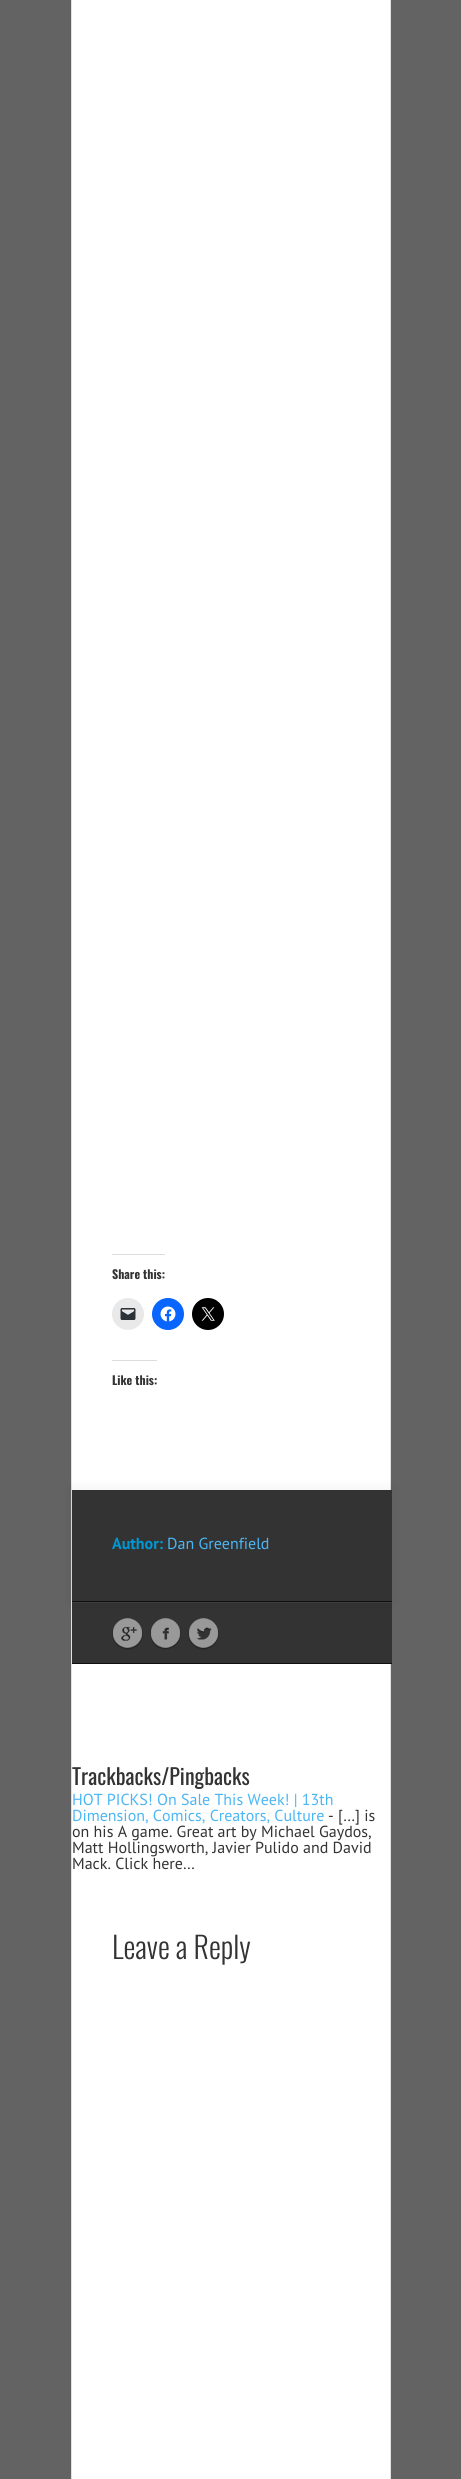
import math
import cairo



def rounded_rect(context, x, y, w, h, r):
    context.new_sub_path()
    for i, (u, v) in enumerate([(x + w - r, y + h - r), (x + r, y + h - r), (x + r, y + r), (x + w - r, y + r)]):
        context.arc(u, v, r, i * math.pi / 2, (i + 1) * math.pi / 2)
    context.close_path()


def draw_shadow(context, x, y, w, h, r, blur, alpha):
    context.push_group_with_content(cairo.Content.ALPHA)
    context.set_operator(cairo.Operator.SOURCE)
    for i in range(15, -16, -2):
        e = blur * i / 6
        if min(w, h) + 2 * e > 0:
            context.set_source_rgba(0, 0, 0, alpha * math.erfc((i - 1) / 8.5) / 2)
            rounded_rect(context, x - e, y - e, w + 2 * e, h + 2 * e, max(0, min(r + e + blur * .6, min(w, h) / 2 + e)))
            context.fill()
    context.mask(context.pop_group())


def draw_image(context, path, x, y, w, h):
    context.save()
    context.set_source_surface(cairo.ImageSurface.create_from_png(path), x, y)
    context.rectangle(x, y, w, h)
    context.fill()
    context.restore()


def draw(context):
    context.set_source_rgb(99 / 255, 99 / 255, 99 / 255)
    context.paint()
    context.set_source_rgb(1, 1, 1)
    context.rectangle(72, 0, 318, 2479)
    context.fill()
    context.set_source_rgb(224 / 255, 224 / 255, 224 / 255)
    context.rectangle(390, 0, 1, 2479)
    context.fill()
    context.rectangle(71, 0, 1, 2479)
    context.fill()
    context.set_source_rgb(220 / 255, 220 / 255, 222 / 255)
    context.rectangle(112, 1254, 53, 1)
    context.fill()
    context.set_source_rgb(233 / 255, 233 / 255, 233 / 255)
    context.arc(128, 1314, 16, 0, 2 * math.pi)
    context.fill()
    draw_image(context, "images/1.png", 120, 1308, 16, 12)
    context.set_source_rgb(8 / 255, 102 / 255, 1)
    context.arc(168, 1314, 16, 0, 2 * math.pi)
    context.fill()
    draw_image(context, "images/2.png", 160, 1306, 16, 16)
    context.set_source_rgb(0, 0, 0)
    context.arc(208, 1314, 16, 0, 2 * math.pi)
    context.fill()
    draw_image(context, "images/3.png", 201, 1307, 14, 14)
    context.set_source_rgb(220 / 255, 220 / 255, 222 / 255)
    context.rectangle(112, 1360, 45, 1)
    context.fill()
    context.set_source_rgb(51 / 255, 51 / 255, 51 / 255)
    context.rectangle(72, 1603, 320, 60)
    context.fill()
    context.set_source_rgb(64 / 255, 64 / 255, 64 / 255)
    context.rectangle(72, 1602, 320, 1)
    context.fill()
    draw_image(context, "images/4.png", 112, 1618, 31, 32)
    draw_image(context, "images/5.png", 150, 1618, 31, 32)
    draw_image(context, "images/6.png", 188, 1618, 31, 32)
    context.set_source_rgb(0, 0, 0)
    draw_shadow(context, 72, 1490, 320, 112, 0, 7.5, 0.07)
    context.set_source_rgb(51 / 255, 51 / 255, 51 / 255)
    context.rectangle(72, 1490, 320, 111)
    context.fill()
    context.set_source_rgb(15 / 255, 15 / 255, 15 / 255)
    context.rectangle(72, 1601, 320, 1)
    context.fill()
    context.rectangle(72, 1663, 320, 1)
    context.fill()
    context.select_font_face("Oswald", cairo.FontSlant.NORMAL, cairo.FontWeight.BOLD)
    context.set_font_size(12)
    context.set_source_rgb(51 / 255, 51 / 255, 51 / 255)
    context.move_to(112, 1279)
    context.show_text("Share this:")
    context.move_to(112, 1385)
    context.show_text("Like this:")
    context.select_font_face("PT Sans", cairo.FontSlant.NORMAL, cairo.FontWeight.BOLD)
    context.set_font_size(16)
    context.set_source_rgb(0, 152 / 255, 211 / 255)
    context.move_to(112, 1549)
    context.show_text("Author:")
    context.select_font_face("PT Sans")
    context.set_source_rgb(75 / 255, 182 / 255, 245 / 255)
    context.move_to(167, 1549)
    context.show_text("Dan Greenfield")
    context.select_font_face("Oswald")
    context.set_font_size(22)
    context.set_source_rgb(51 / 255, 51 / 255, 51 / 255)
    context.move_to(72, 1785)
    context.show_text("Trackbacks/Pingbacks")
    context.select_font_face("PT Sans")
    context.set_font_size(16)
    context.set_source_rgb(75 / 255, 182 / 255, 245 / 255)
    context.move_to(72, 1805)
    context.show_text("HOT PICKS! On Sale This Week! | 13th")
    context.move_to(72, 1821)
    context.show_text("Dimension, Comics, Creators, Culture")
    context.set_source_rgb(51 / 255, 51 / 255, 51 / 255)
    context.move_to(328, 1821)
    context.show_text("- […] is")
    context.move_to(72, 1837)
    context.show_text("on his A game. Great art by Michael Gaydos,")
    context.move_to(72, 1853)
    context.show_text("Matt Hollingsworth, Javier Pulido and David")
    context.move_to(72, 1869)
    context.show_text("Mack. Click here…")
    context.select_font_face("Oswald Light")
    context.set_font_size(30)
    context.move_to(112, 1959)
    context.show_text("Leave a Reply")


surface = cairo.ImageSurface(cairo.Format.RGB24, 461, 2479)
context = cairo.Context(surface)
options = cairo.FontOptions()
options.set_hint_metrics(cairo.HintMetrics.OFF)
options.set_hint_style(cairo.HintStyle.NONE)
context.set_font_options(options)
context.set_miter_limit(4)
draw(context)
surface.write_to_png("out.png")
